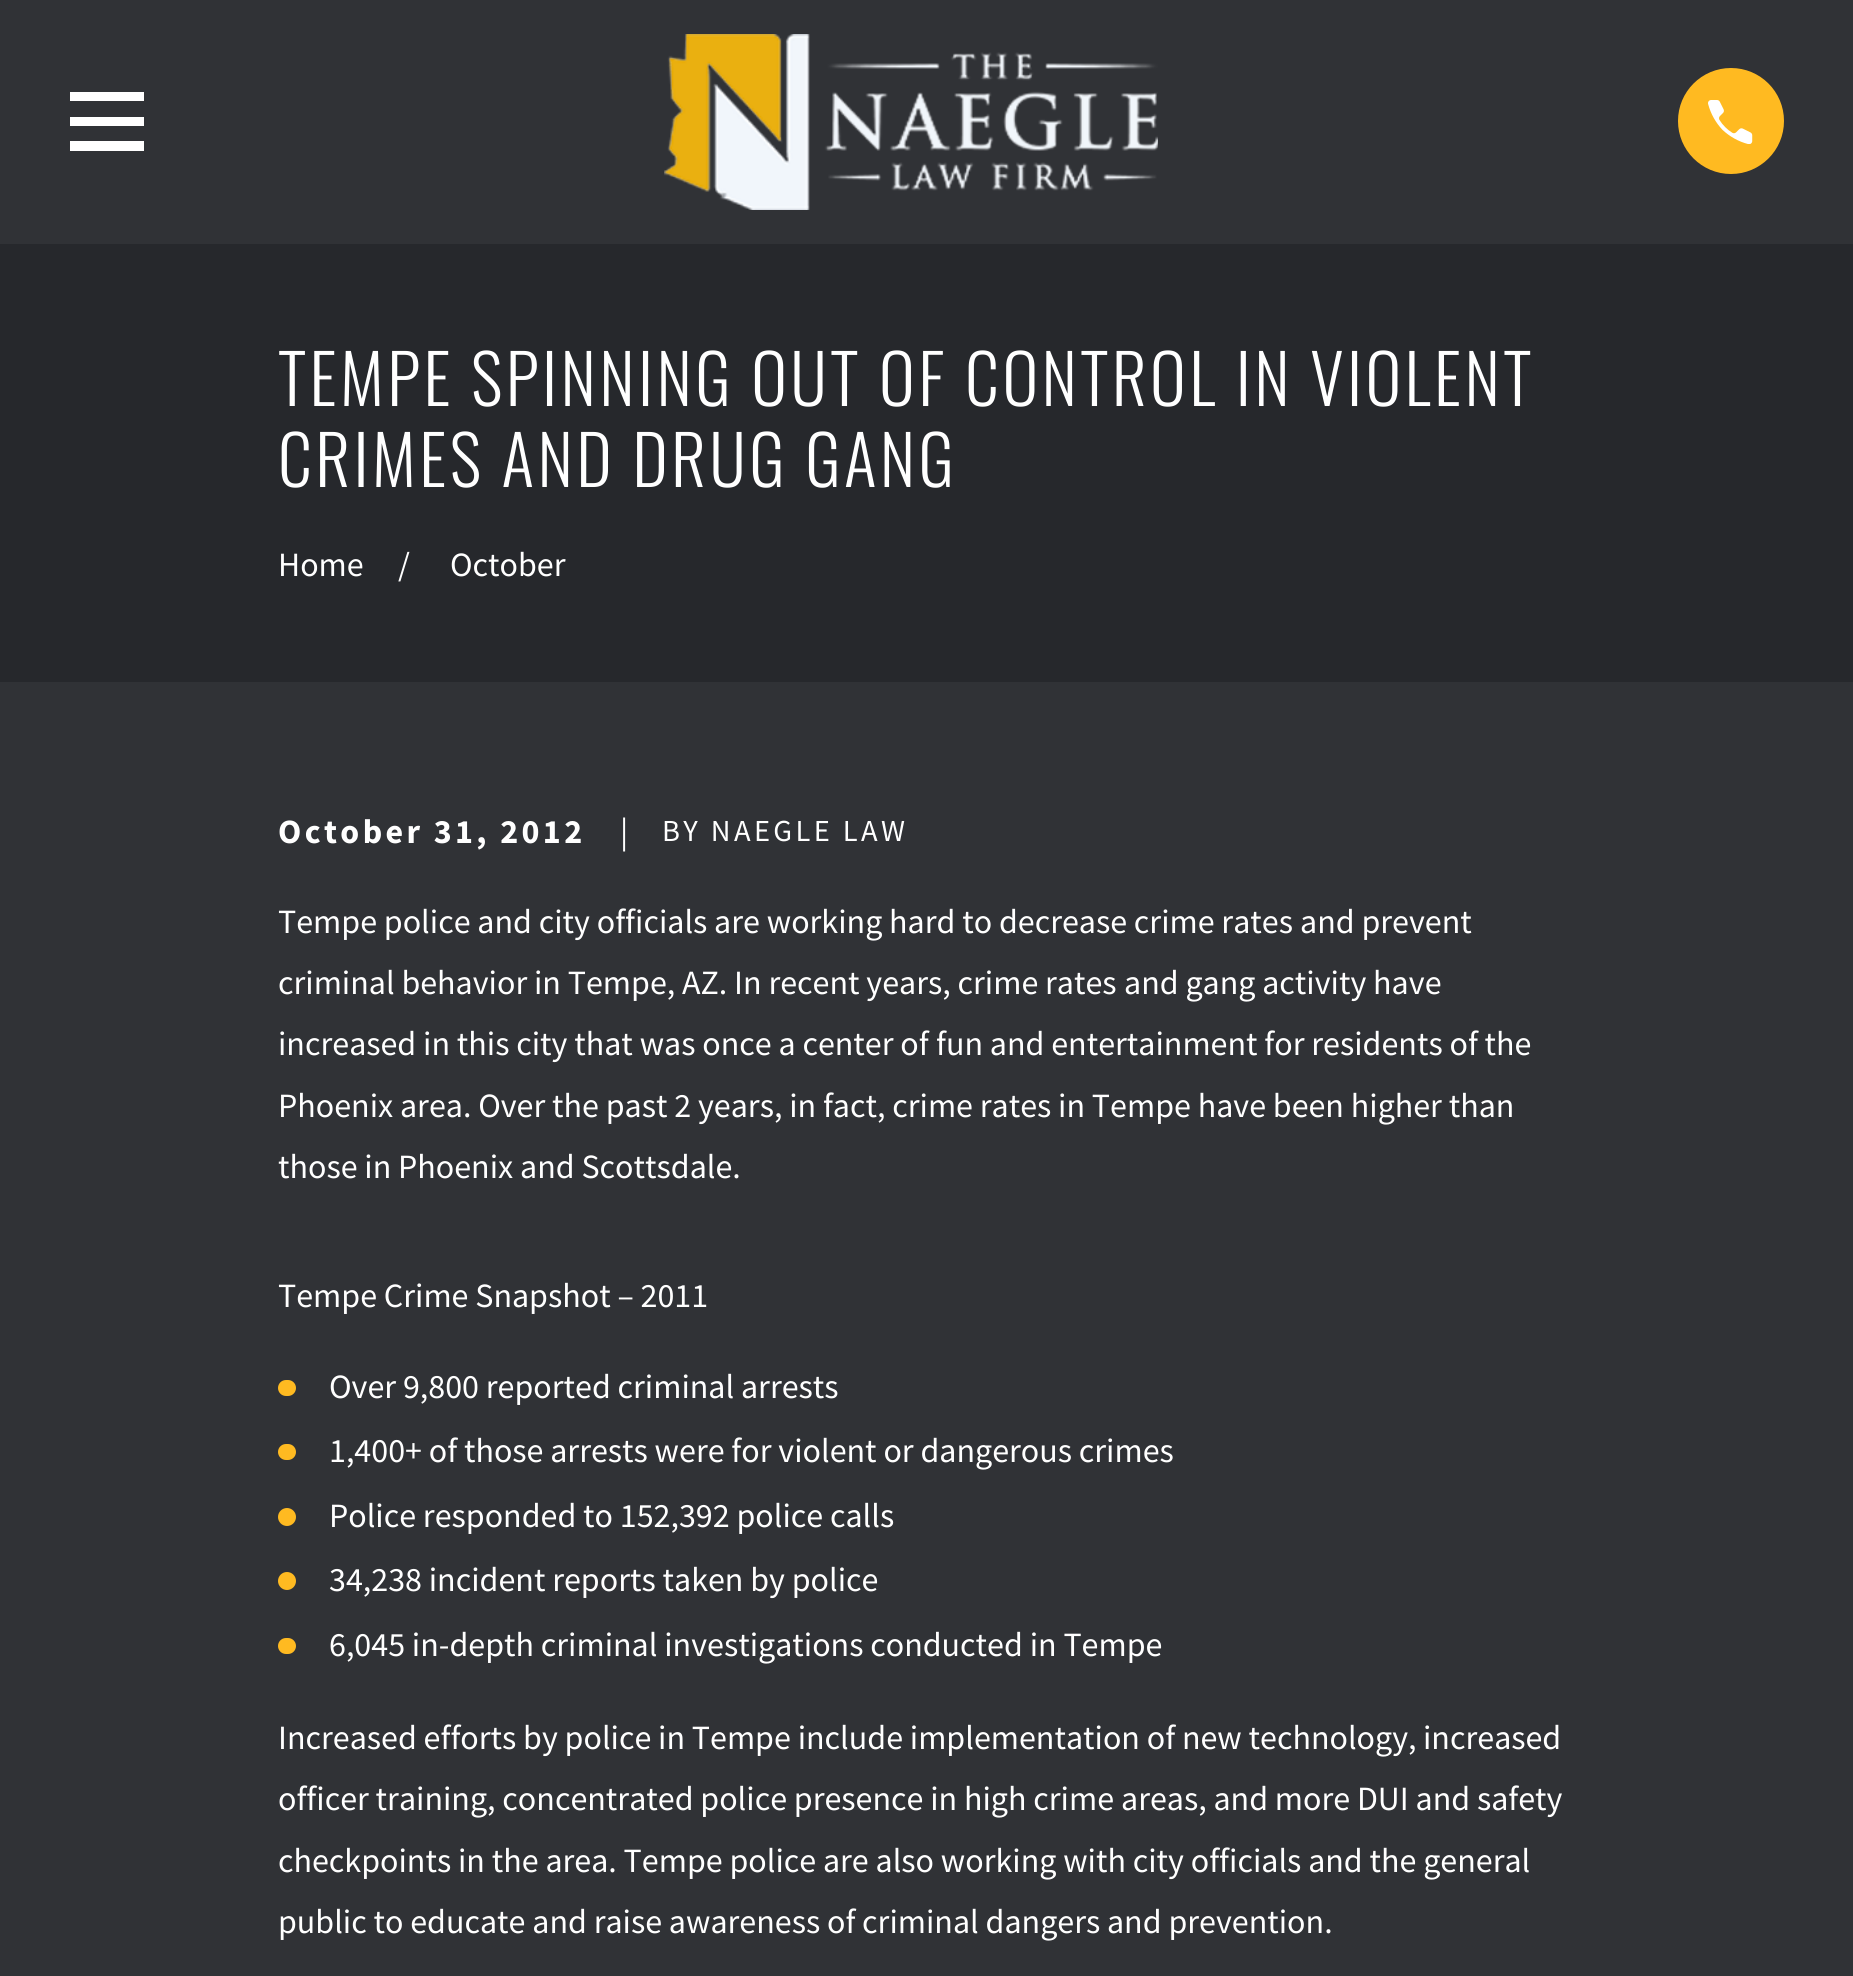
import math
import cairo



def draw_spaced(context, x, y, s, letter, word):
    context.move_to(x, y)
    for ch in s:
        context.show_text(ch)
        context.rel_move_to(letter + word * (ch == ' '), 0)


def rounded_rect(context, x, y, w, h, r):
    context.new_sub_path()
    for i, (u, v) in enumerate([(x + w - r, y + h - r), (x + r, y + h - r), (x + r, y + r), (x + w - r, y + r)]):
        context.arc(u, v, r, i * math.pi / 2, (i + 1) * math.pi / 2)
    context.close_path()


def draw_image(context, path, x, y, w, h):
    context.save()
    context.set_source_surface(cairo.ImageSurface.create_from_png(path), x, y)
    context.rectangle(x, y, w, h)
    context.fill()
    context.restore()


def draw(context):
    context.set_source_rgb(48 / 255, 50 / 255, 54 / 255)
    context.paint()
    context.save()
    context.rectangle(70, 84, 74, 74)
    context.clip()
    context.set_source_rgb(1, 1, 1)
    context.new_path()
    context.move_to(70, 92)
    context.line_to(70, 101)
    context.line_to(145, 101)
    context.line_to(145, 92)
    context.close_path()
    context.move_to(70, 117)
    context.line_to(70, 126)
    context.line_to(145, 126)
    context.line_to(145, 117)
    context.close_path()
    context.move_to(70, 141)
    context.line_to(70, 151)
    context.line_to(145, 151)
    context.line_to(145, 141)
    context.close_path()
    context.fill()
    context.restore()
    draw_image(context, "images/1.png", 664, 34, 494, 176)
    context.set_source_rgb(1, 186 / 255, 33 / 255)
    context.arc(1731, 121, 53, 0, 2 * math.pi)
    context.fill()
    draw_image(context, "images/2.png", 1708, 100, 45, 44)
    context.set_source_rgb(38 / 255, 40 / 255, 44 / 255)
    context.rectangle(0, 244, 1853, 438)
    context.fill()
    context.set_source_rgb(1, 186 / 255, 33 / 255)
    rounded_rect(context, 278, 1380, 18, 16, 8)
    context.fill()
    rounded_rect(context, 278, 1444, 18, 16, 8)
    context.fill()
    context.arc(287, 1517, 9, 0, 2 * math.pi)
    context.fill()
    context.arc(287, 1581, 9, 0, 2 * math.pi)
    context.fill()
    rounded_rect(context, 278, 1638, 18, 16, 8)
    context.fill()
    context.select_font_face("Oswald Light")
    context.set_font_size(68)
    context.set_source_rgb(1, 1, 1)
    draw_spaced(context, 278, 406, "TEMPE SPINNING OUT OF CONTROL IN VIOLENT", 3.4, 0)
    draw_spaced(context, 278, 487, "CRIMES AND DRUG GANG", 3.4, 0)
    context.select_font_face("Source Sans Pro")
    context.set_font_size(34)
    context.move_to(278, 576)
    context.show_text("Home")
    context.move_to(398, 576)
    context.show_text("/")
    context.move_to(450, 576)
    context.show_text("October")
    context.select_font_face("Source Sans Pro", cairo.FontSlant.NORMAL, cairo.FontWeight.BOLD)
    draw_spaced(context, 278, 843, "October 31, 2012", 3.4, 0)
    context.select_font_face("Source Sans Pro")
    context.move_to(620, 843)
    context.show_text("|")
    context.set_font_size(30.5)
    draw_spaced(context, 662, 841, "BY NAEGLE LAW", 3.4, 0)
    context.set_font_size(34)
    context.move_to(278, 933)
    context.show_text("Tempe police and city officials are working hard to decrease crime rates")
    context.move_to(1300, 933)
    context.show_text("and prevent")
    context.move_to(278, 994)
    context.show_text("criminal behavior in Tempe, AZ. In recent years, crime rates")
    context.move_to(1124, 994)
    context.show_text("and gang activity have")
    context.move_to(278, 1055)
    context.show_text("increased in this city that was once a center of")
    context.move_to(936, 1055)
    context.show_text("fun and entertainment for residents of the")
    context.move_to(278, 1117)
    context.show_text("Phoenix area. Over the past 2 years, in fact, crime rates in Tempe have been higher than")
    context.move_to(278, 1178)
    context.show_text("those in Phoenix and Scottsdale.")
    context.move_to(278, 1307)
    context.show_text("Tempe Crime Snapshot – 2011")
    context.move_to(329, 1398)
    context.show_text("Over 9,800 reported criminal arrests")
    context.move_to(329, 1462)
    context.show_text("1,400+ of those arrests were for violent or dangerous crimes")
    context.move_to(329, 1527)
    context.show_text("Police responded to 152,392 police calls")
    context.move_to(329, 1591)
    context.show_text("34,238 incident reports taken by police")
    context.move_to(329, 1656)
    context.show_text("6,045 in-depth criminal investigations conducted in Tempe")
    context.move_to(278, 1749)
    context.show_text("Increased efforts by police in Tempe include implementation of new technology,")
    context.move_to(1423, 1749)
    context.show_text("increased")
    context.move_to(278, 1810)
    context.show_text("officer training, concentrated police presence in high crime")
    context.move_to(1121, 1810)
    context.show_text("areas, and more DUI and safety")
    context.move_to(278, 1872)
    context.show_text("checkpoints in the area. Tempe police are also working with city officials and the general")
    context.move_to(278, 1933)
    context.show_text("public to educate and raise awareness of criminal dangers and prevention.")


surface = cairo.ImageSurface(cairo.Format.RGB24, 1853, 1976)
context = cairo.Context(surface)
options = cairo.FontOptions()
options.set_hint_metrics(cairo.HintMetrics.OFF)
options.set_hint_style(cairo.HintStyle.NONE)
context.set_font_options(options)
context.set_miter_limit(4)
draw(context)
surface.write_to_png("out.png")
